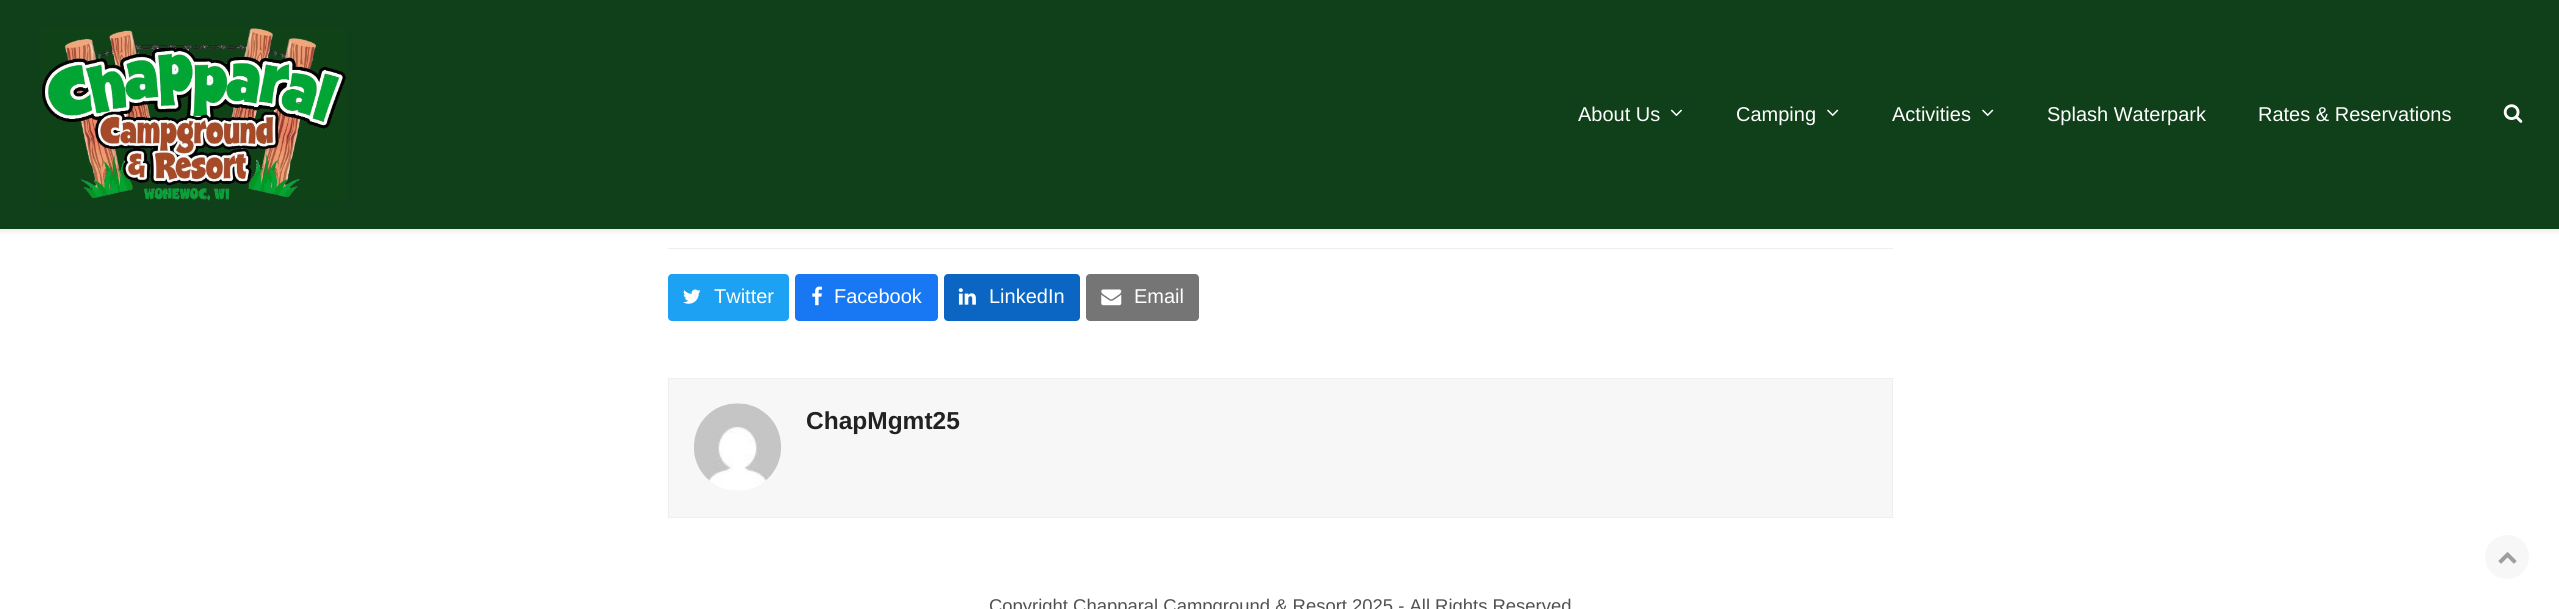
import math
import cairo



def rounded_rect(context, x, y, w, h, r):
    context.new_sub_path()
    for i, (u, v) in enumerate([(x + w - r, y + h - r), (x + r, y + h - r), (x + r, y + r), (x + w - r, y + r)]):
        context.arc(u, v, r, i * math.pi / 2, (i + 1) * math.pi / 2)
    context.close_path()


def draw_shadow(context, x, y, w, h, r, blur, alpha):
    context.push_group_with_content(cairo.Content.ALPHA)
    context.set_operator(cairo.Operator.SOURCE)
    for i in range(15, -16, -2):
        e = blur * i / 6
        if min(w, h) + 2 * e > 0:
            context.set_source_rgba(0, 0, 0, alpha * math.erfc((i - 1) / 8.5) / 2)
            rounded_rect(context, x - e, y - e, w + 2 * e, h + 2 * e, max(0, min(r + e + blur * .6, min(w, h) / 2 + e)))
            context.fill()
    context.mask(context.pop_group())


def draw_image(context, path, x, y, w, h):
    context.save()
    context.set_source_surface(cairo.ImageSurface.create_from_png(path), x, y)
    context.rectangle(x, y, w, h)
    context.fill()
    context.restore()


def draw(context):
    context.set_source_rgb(1, 1, 1)
    context.paint()
    context.set_source_rgb(0, 0, 0)
    draw_shadow(context, 0, 3, 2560, 228, 0, 3, 0.1)
    context.set_source_rgb(15 / 255, 64 / 255, 25 / 255)
    context.rectangle(0, 0, 2559, 229)
    context.fill()
    draw_image(context, "images/1.png", 41, 28, 305, 173)
    draw_image(context, "images/2.png", 1670, 109, 12, 8)
    draw_image(context, "images/3.png", 1827, 109, 12, 8)
    draw_image(context, "images/3.png", 1982, 109, 12, 8)
    draw_image(context, "images/4.png", 2503, 104, 20, 19)
    context.set_source_rgb(238 / 255, 238 / 255, 238 / 255)
    context.rectangle(668, 248, 1225, 1)
    context.fill()
    context.set_source_rgb(29 / 255, 161 / 255, 242 / 255)
    rounded_rect(context, 668, 274, 121, 47, 4)
    context.fill()
    draw_image(context, "images/5.png", 683, 289, 18, 15)
    context.set_source_rgb(24 / 255, 119 / 255, 242 / 255)
    rounded_rect(context, 795, 274, 143, 47, 4)
    context.fill()
    draw_image(context, "images/6.png", 812, 286, 10, 20)
    context.set_source_rgb(10 / 255, 102 / 255, 194 / 255)
    rounded_rect(context, 944, 274, 136, 47, 4)
    context.fill()
    draw_image(context, "images/7.png", 958, 288, 18, 17)
    context.set_source_rgb(117 / 255, 117 / 255, 117 / 255)
    rounded_rect(context, 1086, 274, 113, 47, 4)
    context.fill()
    draw_image(context, "images/8.png", 1101, 289, 21, 17)
    context.set_source_rgb(247 / 255, 247 / 255, 247 / 255)
    context.rectangle(668.5, 378.5, 1224, 139)
    context.fill_preserve()
    context.set_source_rgb(238 / 255, 238 / 255, 238 / 255)
    context.set_line_width(1)
    context.stroke()
    draw_image(context, "images/9.png", 694, 403, 87, 88)
    context.set_source_rgb(247 / 255, 247 / 255, 247 / 255)
    context.arc(2507, 557, 22, 0, 2 * math.pi)
    context.fill()
    draw_image(context, "images/10.png", 2498, 552, 19, 12)
    context.select_font_face("Liberation Sans")
    context.set_font_size(20)
    context.set_source_rgb(1, 1, 1)
    context.move_to(1578, 121)
    context.show_text("About Us")
    context.move_to(1736, 121)
    context.show_text("Camping")
    context.move_to(1892, 121)
    context.show_text("Activities")
    context.move_to(2047, 121)
    context.show_text("Splash Waterpark")
    context.move_to(2258, 121)
    context.show_text("Rates & Reservations")
    context.move_to(714, 303)
    context.show_text("Twitter")
    context.move_to(834, 303)
    context.show_text("Facebook")
    context.move_to(989, 303)
    context.show_text("LinkedIn")
    context.move_to(1134, 303)
    context.show_text("Email")
    context.select_font_face("Liberation Sans", cairo.FontSlant.NORMAL, cairo.FontWeight.BOLD)
    context.set_font_size(24.5)
    context.set_source_rgb(34 / 255, 34 / 255, 34 / 255)
    context.move_to(806, 429)
    context.show_text("ChapMgmt25")
    context.select_font_face("Liberation Sans")
    context.set_font_size(18.45)
    context.set_source_rgb(81 / 255, 81 / 255, 81 / 255)
    context.move_to(989, 612)
    context.show_text("Copyright Chapparal Campground & Resort 2025 - All Rights Reserved")


surface = cairo.ImageSurface(cairo.Format.RGB24, 2559, 609)
context = cairo.Context(surface)
options = cairo.FontOptions()
options.set_hint_metrics(cairo.HintMetrics.OFF)
options.set_hint_style(cairo.HintStyle.NONE)
context.set_font_options(options)
context.set_miter_limit(4)
draw(context)
surface.write_to_png("out.png")
